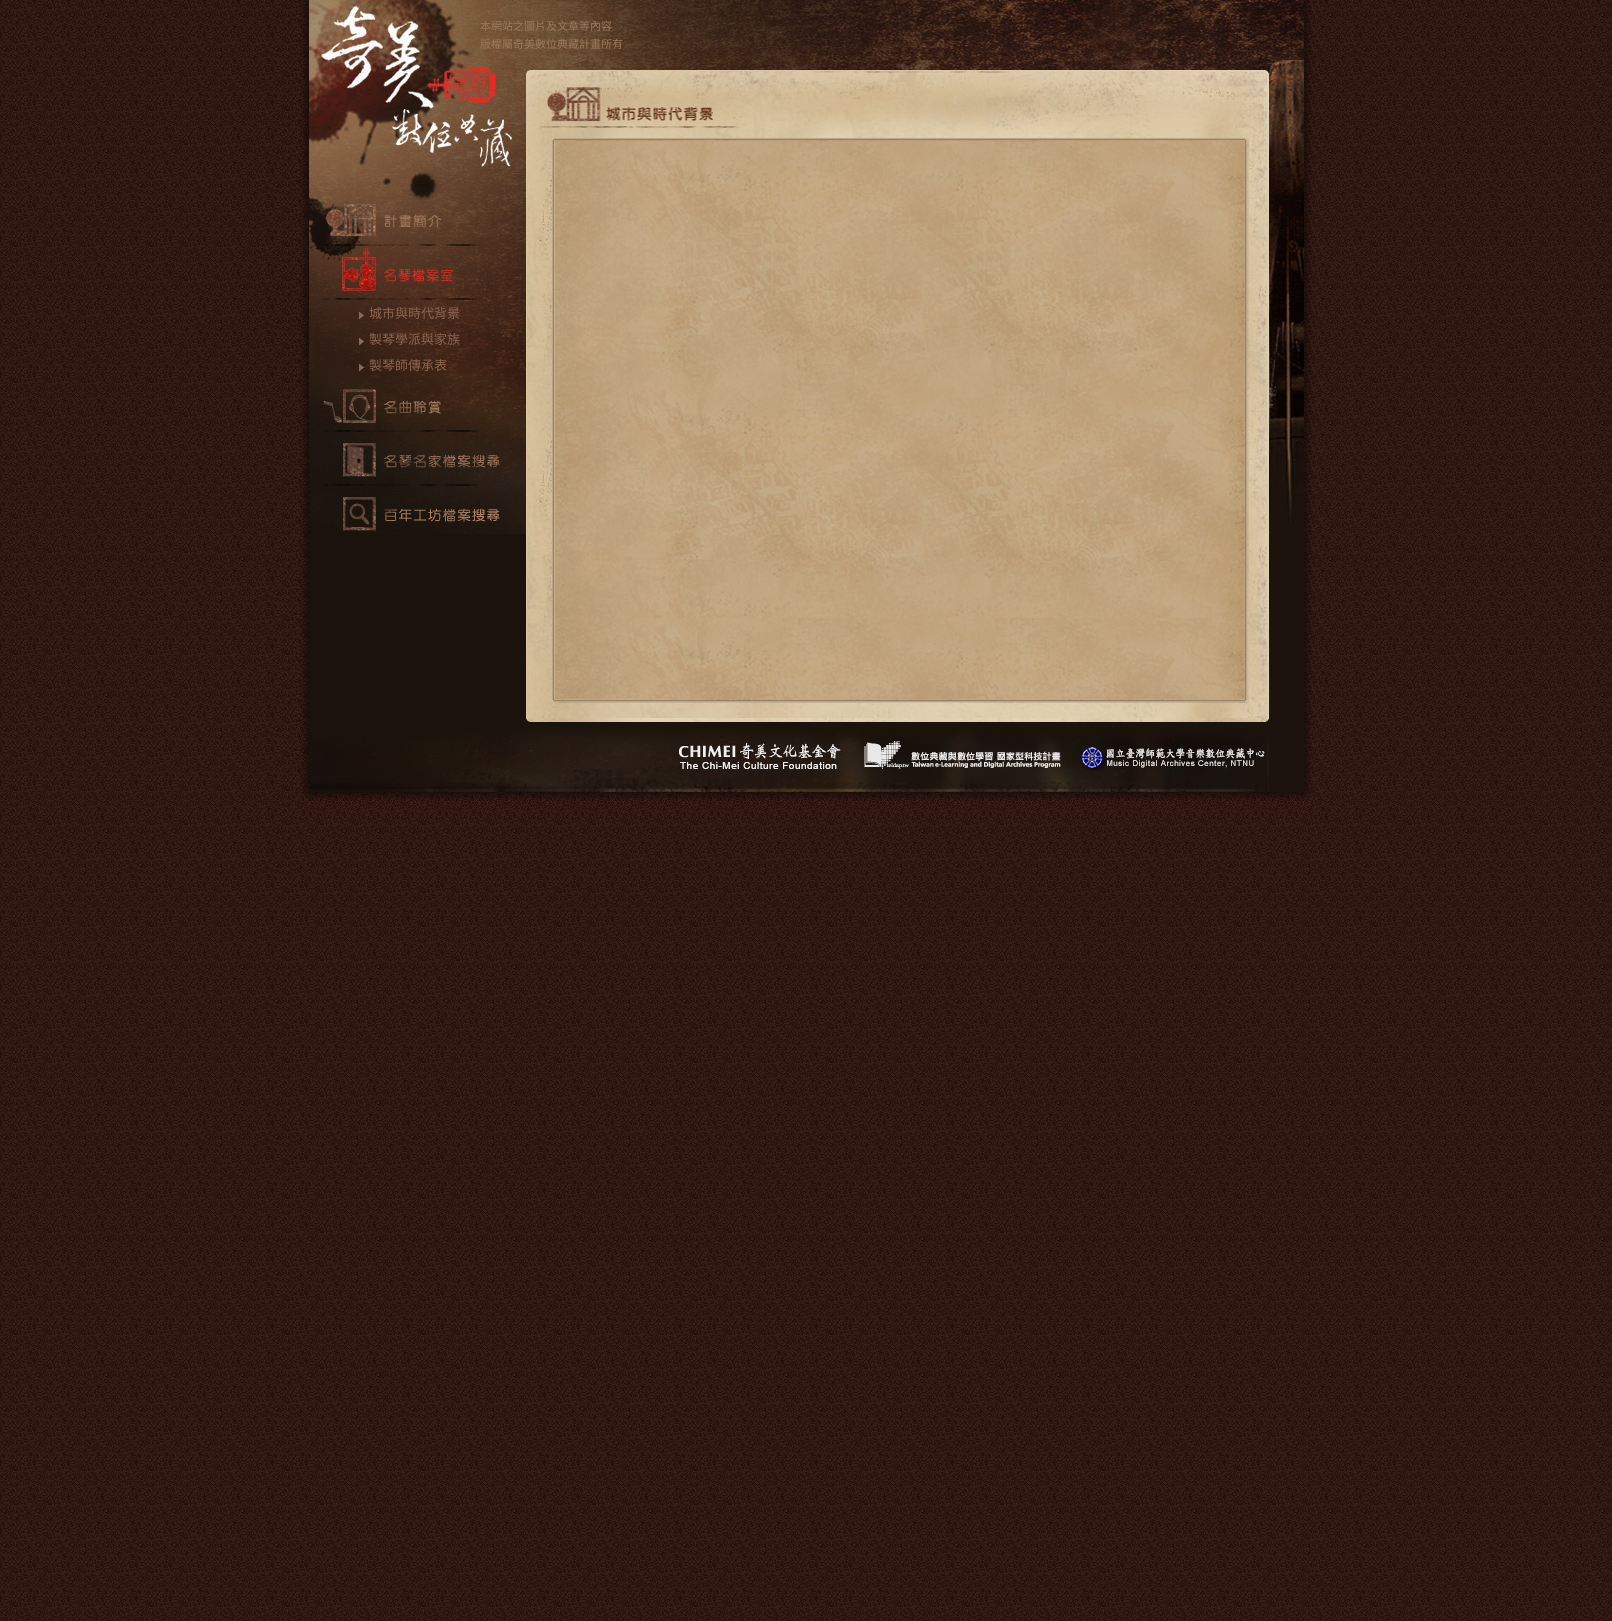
import math
import cairo



def draw_image(context, path, x, y, w, h):
    context.save()
    context.set_source_surface(cairo.ImageSurface.create_from_png(path), x, y)
    context.rectangle(x, y, w, h)
    context.fill()
    context.restore()


def draw(context):
    context.set_source_rgb(1, 1, 1)
    context.paint()
    draw_image(context, "images/1.png", 0, 0, 1612, 1621)
    draw_image(context, "images/2.png", 298, 0, 1017, 722)
    context.set_source_rgb(27 / 255, 19 / 255, 11 / 255)
    context.rectangle(309, 534, 995, 188)
    context.fill()
    draw_image(context, "images/3.png", 526, 534, 745, 184)
    draw_image(context, "images/4.png", 526, 0, 778, 534)
    draw_image(context, "images/5.png", 539, 87, 200, 41)
    draw_image(context, "images/6.png", 552, 141, 697, 558)
    draw_image(context, "images/7.png", 552, 138, 697, 3)
    draw_image(context, "images/8.png", 552, 699, 697, 4)
    draw_image(context, "images/9.png", 526, 718, 745, 4)
    draw_image(context, "images/10.png", 309, 0, 217, 534)
    draw_image(context, "images/11.png", 309, 204, 171, 42)
    draw_image(context, "images/12.png", 309, 247, 171, 53)
    draw_image(context, "images/13.png", 359, 312, 5, 7)
    draw_image(context, "images/14.png", 359, 338, 5, 7)
    draw_image(context, "images/15.png", 359, 364, 5, 7)
    draw_image(context, "images/16.png", 323, 389, 157, 43)
    draw_image(context, "images/17.png", 323, 443, 177, 43)
    draw_image(context, "images/18.png", 343, 497, 157, 34)
    draw_image(context, "images/19.png", 298, 722, 1017, 95)
    draw_image(context, "images/20.png", 679, 743, 162, 26)
    draw_image(context, "images/21.png", 864, 741, 197, 28)
    draw_image(context, "images/22.png", 1082, 747, 183, 24)
    context.select_font_face("Noto Sans CJK TC")
    context.set_font_size(11)
    context.set_source_rgb(155 / 255, 122 / 255, 91 / 255)
    context.move_to(480, 30)
    context.show_text("本網站之圖片及文章等內容")
    context.move_to(480, 48)
    context.show_text("版權屬奇美數位典藏計畫所有")
    context.set_font_size(13)
    context.set_source_rgb(138 / 255, 101 / 255, 80 / 255)
    context.move_to(369, 318)
    context.show_text("城市與時代背景")
    context.move_to(369, 344)
    context.show_text("製琴學派與家族")
    context.move_to(369, 370)
    context.show_text("製琴師傳承表")


surface = cairo.ImageSurface(cairo.Format.RGB24, 1612, 1621)
context = cairo.Context(surface)
options = cairo.FontOptions()
options.set_hint_metrics(cairo.HintMetrics.OFF)
options.set_hint_style(cairo.HintStyle.NONE)
context.set_font_options(options)
context.set_miter_limit(4)
draw(context)
surface.write_to_png("out.png")
